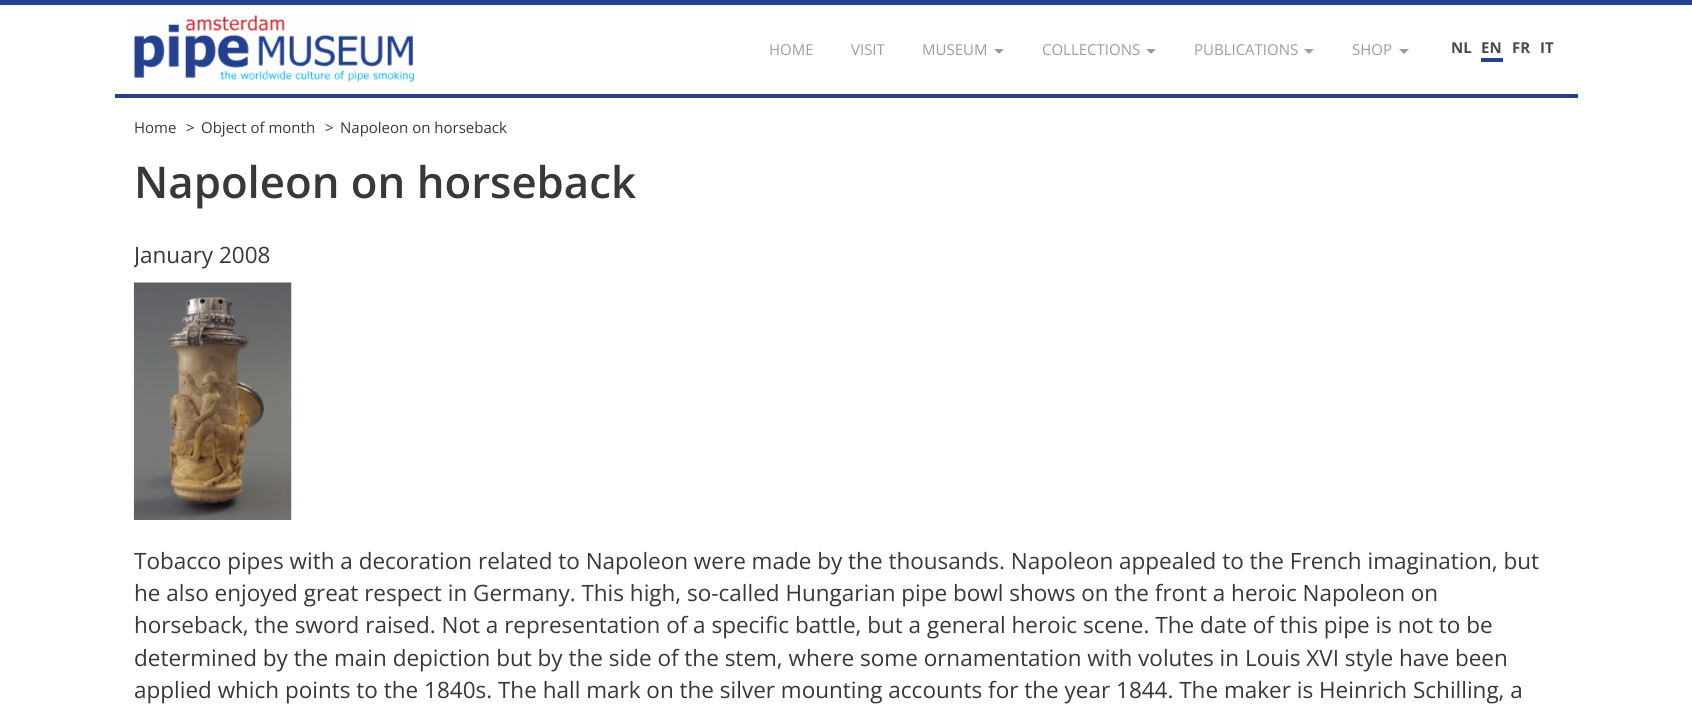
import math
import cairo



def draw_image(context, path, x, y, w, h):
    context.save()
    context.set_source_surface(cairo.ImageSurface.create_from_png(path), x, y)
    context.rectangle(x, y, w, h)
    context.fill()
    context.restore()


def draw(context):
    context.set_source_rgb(1, 1, 1)
    context.paint()
    context.set_source_rgb(36 / 255, 64 / 255, 142 / 255)
    context.rectangle(0, 0, 1692, 5)
    context.fill()
    context.rectangle(115, 94, 1463, 4)
    context.fill()
    draw_image(context, "images/1.png", 133, 14, 281, 68)
    context.set_source_rgb(157 / 255, 157 / 255, 157 / 255)
    context.new_path()
    context.move_to(994, 49)
    context.line_to(1004, 49)
    context.line_to(999, 54)
    context.close_path()
    context.fill()
    context.new_path()
    context.move_to(1146, 49)
    context.line_to(1156, 49)
    context.line_to(1151, 54)
    context.close_path()
    context.fill()
    context.new_path()
    context.move_to(1304, 49)
    context.line_to(1314, 49)
    context.line_to(1309, 54)
    context.close_path()
    context.fill()
    context.new_path()
    context.move_to(1399, 49)
    context.line_to(1409, 49)
    context.line_to(1404, 54)
    context.close_path()
    context.fill()
    context.set_source_rgb(36 / 255, 64 / 255, 142 / 255)
    context.rectangle(1481, 58, 22, 4)
    context.fill()
    draw_image(context, "images/2.png", 133, 282, 159, 238)
    context.select_font_face("Open Sans")
    context.set_font_size(15)
    context.set_source_rgb(157 / 255, 157 / 255, 157 / 255)
    context.move_to(769, 55)
    context.show_text("HOME")
    context.move_to(851, 55)
    context.show_text("VISIT")
    context.move_to(922, 55)
    context.show_text("MUSEUM")
    context.move_to(1042, 55)
    context.show_text("COLLECTIONS")
    context.move_to(1194, 55)
    context.show_text("PUBLICATIONS")
    context.move_to(1352, 55)
    context.show_text("SHOP")
    context.select_font_face("Open Sans", cairo.FontSlant.NORMAL, cairo.FontWeight.BOLD)
    context.set_source_rgb(74 / 255, 74 / 255, 74 / 255)
    context.move_to(1451, 53)
    context.show_text("NL")
    context.move_to(1481, 53)
    context.show_text("EN")
    context.move_to(1512, 53)
    context.show_text("FR")
    context.move_to(1540, 53)
    context.show_text("IT")
    context.select_font_face("Open Sans")
    context.set_source_rgb(56 / 255, 56 / 255, 56 / 255)
    context.move_to(134, 133)
    context.show_text("Home")
    context.move_to(186, 133)
    context.show_text(">")
    context.move_to(201, 133)
    context.show_text("Object of month")
    context.move_to(325, 133)
    context.show_text(">")
    context.move_to(340, 133)
    context.show_text("Napoleon on horseback")
    context.select_font_face("Open Sans SemiBold")
    context.set_font_size(43.75)
    context.move_to(134, 198)
    context.show_text("Napoleon on horseback")
    context.save()
    context.rectangle(134, 158, 1425, 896)
    context.clip()
    context.select_font_face("Open Sans")
    context.set_font_size(22.5)
    context.move_to(134, 263)
    context.show_text("January")
    context.restore()
    context.select_font_face("Open Sans")
    context.set_font_size(22.5)
    context.move_to(219, 263)
    context.show_text("2008")
    context.move_to(134, 569)
    context.show_text("Tobacco pipes with a decoration related to Napoleon were made by the thousands. Napoleon appealed to the French imagination, but")
    context.move_to(134, 601)
    context.show_text("he also enjoyed great respect in Germany. This high, so-called Hungarian pipe bowl shows on the front a heroic Napoleon on")
    context.move_to(134, 633)
    context.show_text("horseback, the sword raised. Not a representation of a specific battle, but a general heroic scene. The date of this pipe is not to be")
    context.move_to(134, 666)
    context.show_text("determined by the main depiction but by the side of the stem, where some ornamentation with volutes in Louis XVI style have been")
    context.move_to(134, 698)
    context.show_text("applied which points to the 1840s. The hall mark on the silver mounting accounts for the year 1844. The maker is Heinrich Schilling, a")


surface = cairo.ImageSurface(cairo.Format.RGB24, 1692, 710)
context = cairo.Context(surface)
options = cairo.FontOptions()
options.set_hint_metrics(cairo.HintMetrics.OFF)
options.set_hint_style(cairo.HintStyle.NONE)
context.set_font_options(options)
context.set_miter_limit(4)
draw(context)
surface.write_to_png("out.png")
